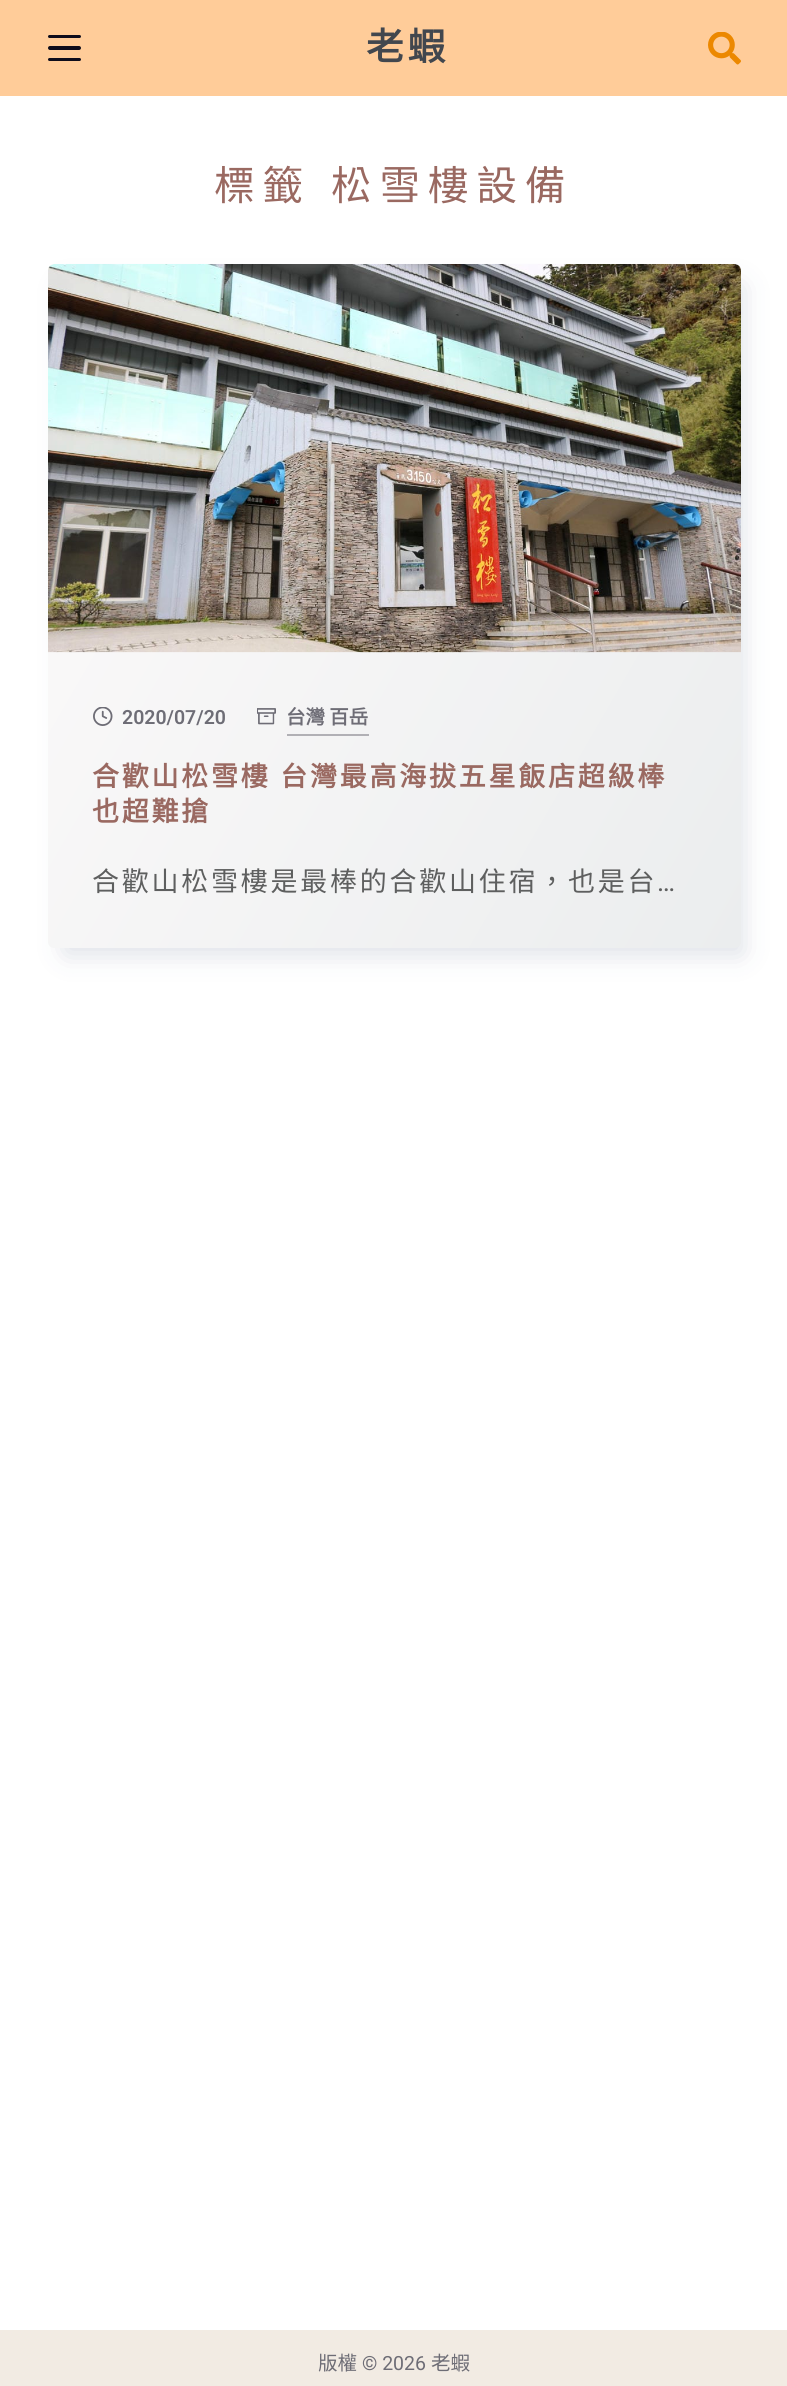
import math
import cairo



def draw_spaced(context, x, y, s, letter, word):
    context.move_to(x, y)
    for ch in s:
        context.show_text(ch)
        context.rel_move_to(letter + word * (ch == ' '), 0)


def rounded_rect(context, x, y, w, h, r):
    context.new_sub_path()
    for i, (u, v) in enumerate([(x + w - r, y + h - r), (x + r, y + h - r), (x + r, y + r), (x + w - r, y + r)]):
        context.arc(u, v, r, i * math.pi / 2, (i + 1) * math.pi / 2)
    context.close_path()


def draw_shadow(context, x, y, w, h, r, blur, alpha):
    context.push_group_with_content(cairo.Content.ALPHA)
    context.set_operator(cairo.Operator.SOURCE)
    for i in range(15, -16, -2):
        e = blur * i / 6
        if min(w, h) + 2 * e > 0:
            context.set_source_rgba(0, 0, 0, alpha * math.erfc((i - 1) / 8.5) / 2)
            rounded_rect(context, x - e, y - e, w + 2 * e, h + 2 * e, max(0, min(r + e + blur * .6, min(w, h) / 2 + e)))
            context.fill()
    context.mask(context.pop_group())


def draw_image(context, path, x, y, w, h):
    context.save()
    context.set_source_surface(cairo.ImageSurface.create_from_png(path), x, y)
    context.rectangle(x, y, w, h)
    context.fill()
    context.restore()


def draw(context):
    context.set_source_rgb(1, 1, 1)
    context.paint()
    context.set_source_rgb(1, 204 / 255, 153 / 255)
    context.rectangle(0, 0, 787, 96)
    context.fill()
    context.set_source_rgb(14 / 255, 12 / 255, 27 / 255)
    rounded_rect(context, 48, 35, 33, 3, 1.5)
    context.fill()
    rounded_rect(context, 48, 46, 33, 4, 2)
    context.fill()
    rounded_rect(context, 48, 58, 33, 3, 1.5)
    context.fill()
    draw_image(context, "images/1.png", 708, 32, 33, 33)
    context.set_source_rgb(35 / 255, 57 / 255, 102 / 255)
    draw_shadow(context, 66, 287, 675, 666, 0, 13.5, 0.17)
    gradient = cairo.LinearGradient(-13, 370, 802, 842)
    gradient.add_color_stop_rgba(0, 253 / 255, 251 / 255, 251 / 255, 1)
    gradient.add_color_stop_rgba(1, 235 / 255, 237 / 255, 238 / 255, 1)
    context.set_source(gradient)
    rounded_rect(context, 48, 264, 693, 684, 6)
    context.fill()
    draw_image(context, "images/2.png", 48, 264, 693, 389)
    draw_image(context, "images/3.png", 93, 707, 20, 19)
    draw_image(context, "images/4.png", 257, 708, 19, 17)
    context.set_source_rgb(177 / 255, 176 / 255, 181 / 255)
    context.rectangle(287, 734, 82, 2)
    context.fill()
    context.set_source_rgb(242 / 255, 235 / 255, 227 / 255)
    context.rectangle(0, 2330, 787, 56)
    context.fill()
    context.select_font_face("Noto Sans CJK TC", cairo.FontSlant.NORMAL, cairo.FontWeight.BOLD)
    context.set_font_size(37.5)
    context.set_source_rgb(66 / 255, 71 / 255, 78 / 255)
    draw_spaced(context, 366, 60, "老蝦", 4, 0)
    context.select_font_face("Noto Sans CJK TC")
    context.set_font_size(40.5)
    context.set_source_rgb(154 / 255, 105 / 255, 97 / 255)
    draw_spaced(context, 214, 200, "標籤", 8, 0)
    draw_spaced(context, 331, 200, "松雪樓設備", 8, 0)
    context.select_font_face("Roboto SemiBold")
    context.set_font_size(19.5)
    context.set_source_rgb(110 / 255, 109 / 255, 118 / 255)
    context.move_to(122, 724)
    context.show_text("2020/07/20")
    context.select_font_face("Noto Sans CJK TC", cairo.FontSlant.NORMAL, cairo.FontWeight.BOLD)
    context.move_to(286, 724)
    context.show_text("台灣 百岳")
    context.set_font_size(27)
    context.set_source_rgb(154 / 255, 105 / 255, 97 / 255)
    draw_spaced(context, 92, 786, "合歡山松雪樓 台灣最高海拔五星飯店超級棒", 2.75, 1)
    draw_spaced(context, 92, 821, "也超難搶", 2.75, 0)
    context.select_font_face("Noto Sans CJK TC")
    context.set_source_rgb(94 / 255, 95 / 255, 95 / 255)
    draw_spaced(context, 92, 891, "合歡山松雪樓是最棒的合歡山住宿，也是台", 2.75, 0)
    context.select_font_face("Roboto")
    draw_spaced(context, 657, 891, "…", 2.75, 0)
    context.select_font_face("Noto Sans CJK TC")
    context.set_font_size(19.5)
    context.set_source_rgb(110 / 255, 109 / 255, 118 / 255)
    context.move_to(318, 2370)
    context.show_text("版權")
    context.select_font_face("Roboto")
    context.move_to(362, 2370)
    context.show_text("© 2026")
    context.select_font_face("Noto Sans CJK TC")
    context.move_to(431, 2370)
    context.show_text("老蝦")


surface = cairo.ImageSurface(cairo.Format.RGB24, 787, 2386)
context = cairo.Context(surface)
options = cairo.FontOptions()
options.set_hint_metrics(cairo.HintMetrics.OFF)
options.set_hint_style(cairo.HintStyle.NONE)
context.set_font_options(options)
context.set_miter_limit(4)
draw(context)
surface.write_to_png("out.png")
